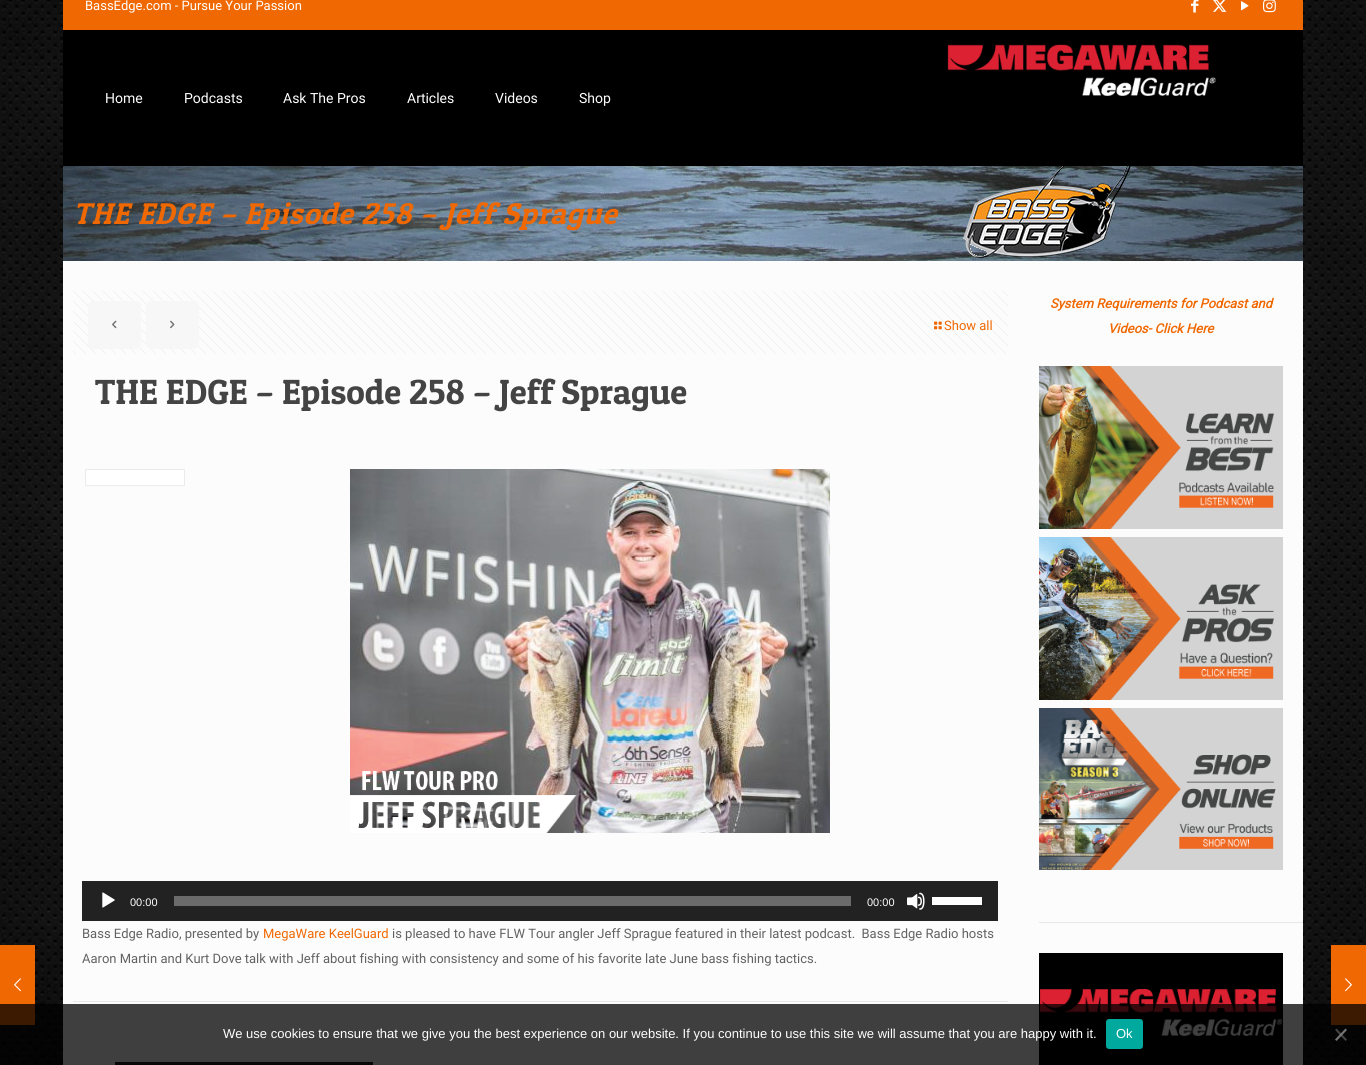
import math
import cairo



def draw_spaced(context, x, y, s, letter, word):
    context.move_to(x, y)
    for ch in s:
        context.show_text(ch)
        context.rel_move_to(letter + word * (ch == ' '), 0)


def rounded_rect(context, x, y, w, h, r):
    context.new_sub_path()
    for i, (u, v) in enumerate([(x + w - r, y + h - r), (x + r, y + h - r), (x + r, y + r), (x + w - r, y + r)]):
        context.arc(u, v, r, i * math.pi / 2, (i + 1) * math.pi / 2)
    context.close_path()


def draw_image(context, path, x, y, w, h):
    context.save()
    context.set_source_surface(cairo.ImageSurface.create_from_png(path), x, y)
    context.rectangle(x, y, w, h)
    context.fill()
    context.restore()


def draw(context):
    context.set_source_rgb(1, 1, 1)
    context.paint()
    draw_image(context, "images/1.png", 0, 0, 1366, 1065)
    context.set_source_rgb(252 / 255, 252 / 255, 252 / 255)
    context.rectangle(63, 261, 1240, 804)
    context.fill()
    context.set_source_rgb(240 / 255, 104 / 255, 2 / 255)
    context.rectangle(63, 0, 1240, 30)
    context.fill()
    draw_image(context, "images/2.png", 1191, 0, 8, 13)
    draw_image(context, "images/3.png", 1213, 0, 14, 12)
    draw_image(context, "images/4.png", 1241, 1, 8, 10)
    draw_image(context, "images/5.png", 1263, 0, 13, 13)
    context.set_source_rgb(0, 0, 0)
    context.rectangle(63, 30, 1240, 136)
    context.fill()
    draw_image(context, "images/6.png", 947, 44, 269, 52)
    draw_image(context, "images/7.png", 63, 166, 1240, 95)
    draw_image(context, "images/8.png", 1039, 366, 244, 163)
    draw_image(context, "images/9.png", 1039, 537, 244, 163)
    draw_image(context, "images/10.png", 1039, 708, 244, 162)
    context.set_source_rgba(0, 0, 0, 0.08)
    context.rectangle(1039, 922, 264, 1)
    context.fill()
    draw_image(context, "images/11.png", 1039, 953, 244, 112)
    draw_image(context, "images/12.png", 73, 291, 935, 63)
    context.set_source_rgb(247 / 255, 247 / 255, 247 / 255)
    rounded_rect(context, 88, 301, 53, 48, 5)
    context.fill()
    draw_image(context, "images/13.png", 112, 320, 5, 9)
    rounded_rect(context, 146, 301, 53, 48, 5)
    context.fill()
    draw_image(context, "images/14.png", 170, 320, 5, 9)
    draw_image(context, "images/15.png", 934, 321, 8, 9)
    context.set_source_rgb(1, 1, 1)
    context.rectangle(85.5, 469.5, 99, 16)
    context.fill_preserve()
    context.set_source_rgb(235 / 255, 235 / 255, 235 / 255)
    context.set_line_width(1)
    context.stroke()
    draw_image(context, "images/16.png", 350, 469, 480, 364)
    context.set_source_rgb(34 / 255, 34 / 255, 34 / 255)
    context.rectangle(82, 881, 916, 40)
    context.fill()
    draw_image(context, "images/17.png", 102, 892, 13, 16)
    context.set_source_rgb(107 / 255, 107 / 255, 107 / 255)
    context.rectangle(174, 896, 677, 10)
    context.fill()
    draw_image(context, "images/18.png", 907, 892, 18, 18)
    context.set_source_rgb(1, 1, 1)
    context.rectangle(932, 897, 50, 8)
    context.fill()
    context.set_source_rgb(232 / 255, 232 / 255, 232 / 255)
    context.rectangle(73, 1001, 935, 1)
    context.fill()
    context.set_source_rgb(34 / 255, 30 / 255, 31 / 255)
    context.rectangle(115, 1062, 258, 3)
    context.fill()
    context.set_source_rgb(240 / 255, 104 / 255, 2 / 255)
    context.rectangle(0, 945, 35, 80)
    context.fill()
    draw_image(context, "images/19.png", 14, 978, 7, 14)
    context.rectangle(1331, 945, 35, 80)
    context.fill()
    draw_image(context, "images/20.png", 1345, 978, 7, 14)
    context.set_source_rgba(0, 0, 0, 0.75)
    context.rectangle(0, 1004, 1366, 61)
    context.fill()
    context.set_source_rgb(0, 169 / 255, 157 / 255)
    rounded_rect(context, 1106, 1019, 37, 30, 3)
    context.fill()
    context.set_source_rgba(234 / 255, 234 / 255, 234 / 255, 0.5)
    context.new_path()
    context.move_to(1345.5, 1028.5)
    context.line_to(1347, 1030)
    context.line_to(1336.5, 1041)
    context.line_to(1335, 1039.5)
    context.close_path()
    context.fill()
    context.set_source_rgba(128 / 255, 128 / 255, 128 / 255, 0.5)
    context.new_path()
    context.move_to(1335, 1030)
    context.line_to(1336.5, 1028.5)
    context.line_to(1347, 1039.5)
    context.line_to(1345.5, 1041)
    context.close_path()
    context.fill()
    context.select_font_face("Roboto")
    context.set_font_size(13)
    context.set_source_rgb(1, 1, 1)
    context.move_to(85, 10)
    context.show_text("BassEdge.com - Pursue Your Passion")
    context.set_font_size(14)
    context.move_to(105, 103)
    context.show_text("Home")
    context.move_to(184, 103)
    context.show_text("Podcasts")
    context.move_to(283, 103)
    context.show_text("Ask The Pros")
    context.move_to(407, 103)
    context.show_text("Articles")
    context.move_to(495, 103)
    context.show_text("Videos")
    context.move_to(579, 103)
    context.show_text("Shop")
    context.select_font_face("Patua One", cairo.FontSlant.ITALIC)
    context.set_font_size(30)
    context.set_source_rgb(240 / 255, 104 / 255, 2 / 255)
    draw_spaced(context, 73, 224, "THE EDGE – Episode 258 – Jeff Sprague", 1, 0)
    context.select_font_face("Roboto", cairo.FontSlant.ITALIC, cairo.FontWeight.BOLD)
    context.set_font_size(13)
    context.move_to(1050, 308)
    context.show_text("System Requirements for Podcast and")
    context.move_to(1108, 333)
    context.show_text("Videos- Click Here")
    context.select_font_face("Roboto")
    context.move_to(944, 330)
    context.show_text("Show all")
    context.select_font_face("Patua One")
    context.set_font_size(35)
    context.set_source_rgb(68 / 255, 68 / 255, 68 / 255)
    context.move_to(95, 404)
    context.show_text("THE EDGE – Episode 258 – Jeff Sprague")
    context.select_font_face("Liberation Sans")
    context.set_font_size(11)
    context.set_source_rgb(1, 1, 1)
    context.move_to(130, 906)
    context.show_text("00:00")
    context.move_to(867, 906)
    context.show_text("00:00")
    context.select_font_face("Roboto")
    context.set_font_size(13)
    context.set_source_rgb(98 / 255, 98 / 255, 98 / 255)
    context.move_to(82, 938)
    context.show_text("Bass Edge Radio, presented by")
    context.set_source_rgb(240 / 255, 104 / 255, 2 / 255)
    context.move_to(263, 938)
    context.show_text("MegaWare KeelGuard")
    context.set_source_rgb(98 / 255, 98 / 255, 98 / 255)
    context.move_to(392, 938)
    context.show_text("is pleased to have FLW Tour angler Jeff Sprague featured in their latest podcast.  Bass Edge Radio hosts")
    context.move_to(82, 963)
    context.show_text("Aaron Martin and Kurt Dove talk with Jeff about fishing with consistency and some of his favorite late June bass fishing tactics.")
    context.select_font_face("Liberation Sans")
    context.set_source_rgb(1, 1, 1)
    context.move_to(223, 1038)
    context.show_text("We use cookies to ensure that we give you the best experience on our website. If you continue to use this site we will assume that you are happy with it.")
    context.move_to(1116, 1038)
    context.show_text("Ok")


surface = cairo.ImageSurface(cairo.Format.RGB24, 1366, 1065)
context = cairo.Context(surface)
options = cairo.FontOptions()
options.set_hint_metrics(cairo.HintMetrics.OFF)
options.set_hint_style(cairo.HintStyle.NONE)
context.set_font_options(options)
context.set_miter_limit(4)
draw(context)
surface.write_to_png("out.png")
